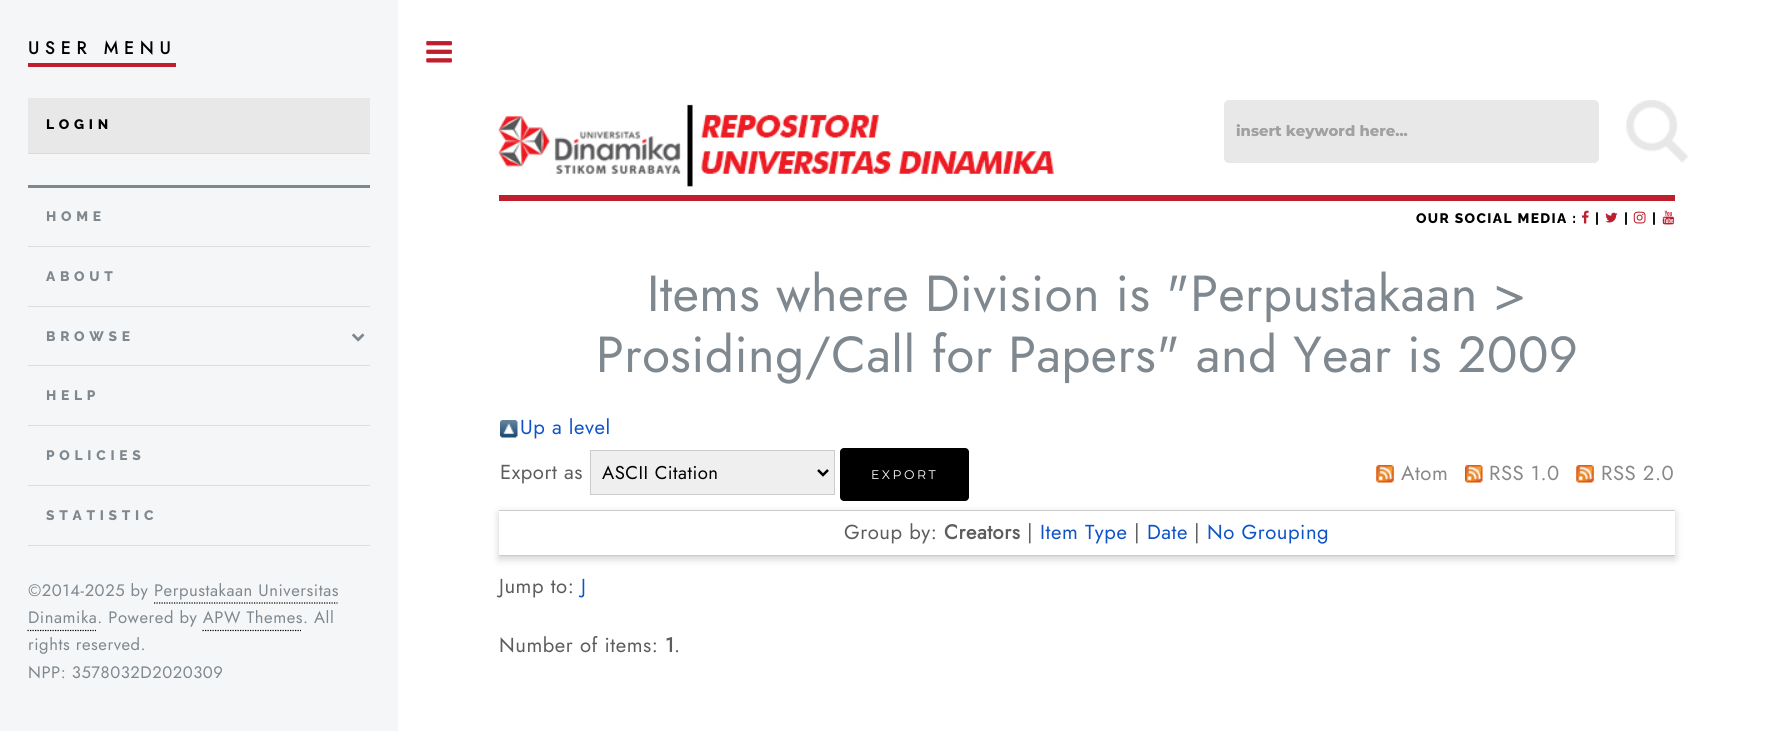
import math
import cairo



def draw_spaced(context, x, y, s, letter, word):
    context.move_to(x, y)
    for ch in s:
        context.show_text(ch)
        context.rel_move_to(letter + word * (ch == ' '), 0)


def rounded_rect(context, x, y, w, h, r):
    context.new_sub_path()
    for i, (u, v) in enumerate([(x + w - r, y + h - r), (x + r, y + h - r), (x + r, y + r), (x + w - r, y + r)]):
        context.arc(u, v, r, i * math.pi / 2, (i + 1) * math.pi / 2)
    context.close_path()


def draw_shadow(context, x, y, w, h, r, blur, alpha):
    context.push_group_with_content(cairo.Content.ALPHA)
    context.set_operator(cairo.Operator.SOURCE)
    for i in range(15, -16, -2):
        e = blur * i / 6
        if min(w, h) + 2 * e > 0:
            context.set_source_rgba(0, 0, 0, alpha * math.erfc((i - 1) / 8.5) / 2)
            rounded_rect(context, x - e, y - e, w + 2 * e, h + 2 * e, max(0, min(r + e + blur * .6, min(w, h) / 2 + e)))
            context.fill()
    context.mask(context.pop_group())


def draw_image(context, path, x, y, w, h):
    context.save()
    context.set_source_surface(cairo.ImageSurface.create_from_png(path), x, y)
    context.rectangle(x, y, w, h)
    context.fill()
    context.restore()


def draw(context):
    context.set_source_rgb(1, 1, 1)
    context.paint()
    context.set_source_rgb(245 / 255, 246 / 255, 247 / 255)
    context.rectangle(0, 0, 398, 731)
    context.fill()
    context.set_source_rgb(191 / 255, 30 / 255, 46 / 255)
    context.rectangle(28, 63, 148, 4)
    context.fill()
    context.set_source_rgb(232 / 255, 232 / 255, 232 / 255)
    context.rectangle(28, 98, 342, 55)
    context.fill()
    context.set_source_rgb(216 / 255, 219 / 255, 221 / 255)
    context.rectangle(28, 153, 342, 1)
    context.fill()
    context.set_source_rgb(127 / 255, 136 / 255, 143 / 255)
    context.rectangle(28, 185, 342, 3)
    context.fill()
    context.set_source_rgb(219 / 255, 223 / 255, 225 / 255)
    context.rectangle(28, 246, 342, 1)
    context.fill()
    context.rectangle(28, 306, 342, 1)
    context.fill()
    draw_image(context, "images/1.png", 352, 333, 13, 9)
    context.rectangle(28, 365, 342, 1)
    context.fill()
    context.rectangle(28, 425, 342, 1)
    context.fill()
    context.rectangle(28, 485, 342, 1)
    context.fill()
    context.rectangle(28, 545, 342, 1)
    context.fill()
    context.new_path()
    context.move_to(154, 603)
    context.line_to(337.5, 603)
    context.set_source_rgb(0, 0, 0)
    context.set_line_width(1.2)
    context.set_dash([1.25, 1.25])
    context.stroke()
    context.new_path()
    context.move_to(27.5, 630.5)
    context.line_to(96, 630.5)
    context.stroke()
    context.new_path()
    context.move_to(202.5, 630.5)
    context.line_to(301, 630.5)
    context.stroke()
    draw_image(context, "images/2.png", 426, 41, 26, 22)
    context.set_source_rgb(191 / 255, 30 / 255, 46 / 255)
    context.rectangle(499, 195, 1176, 6)
    context.fill()
    draw_image(context, "images/3.png", 498, 104, 556, 83)
    draw_image(context, "images/4.png", 1582, 210, 7, 14)
    draw_image(context, "images/5.png", 1605, 212, 13, 11)
    draw_image(context, "images/6.png", 1633, 211, 13, 13)
    draw_image(context, "images/7.png", 1662, 210, 13, 15)
    draw_image(context, "images/8.png", 500, 420, 18, 18)
    context.set_source_rgb(239 / 255, 239 / 255, 239 / 255)
    context.rectangle(590.5, 450.5, 244, 44)
    context.fill_preserve()
    context.set_source_rgb(204 / 255, 204 / 255, 204 / 255)
    context.set_line_width(1)
    context.set_dash([])
    context.stroke()
    context.new_path()
    context.move_to(818, 470)
    context.line_to(823, 475)
    context.line_to(828, 470)
    context.set_source_rgb(0, 0, 0)
    context.set_line_width(2.5)
    context.stroke()
    context.save()
    context.set_fill_rule(cairo.FillRule.EVEN_ODD)
    context.new_path()
    context.move_to(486, 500)
    context.line_to(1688, 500)
    context.line_to(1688, 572)
    context.line_to(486, 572)
    context.close_path()
    context.move_to(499, 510)
    context.line_to(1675, 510)
    context.line_to(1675, 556)
    context.line_to(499, 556)
    context.close_path()
    context.clip()
    context.set_source_rgb(100 / 255, 100 / 255, 100 / 255)
    draw_shadow(context, 499, 513, 1176, 46, 0, 4, 0.3)
    context.restore()
    rounded_rect(context, 840, 448, 129, 53, 4)
    context.fill()
    draw_image(context, "images/9.png", 1376, 465, 18, 18)
    draw_image(context, "images/10.png", 1465, 465, 18, 18)
    draw_image(context, "images/9.png", 1576, 465, 18, 18)
    context.set_source_rgb(204 / 255, 204 / 255, 204 / 255)
    context.rectangle(499, 510, 1176, 1)
    context.fill()
    context.rectangle(499, 555, 1176, 1)
    context.fill()
    context.set_source_rgb(232 / 255, 232 / 255, 232 / 255)
    rounded_rect(context, 1224, 100, 375, 63, 5)
    context.fill()
    draw_image(context, "images/11.png", 1626, 100, 62, 63)
    context.select_font_face("Jost", cairo.FontSlant.NORMAL, cairo.FontWeight.BOLD)
    context.set_font_size(17.5)
    context.set_source_rgb(0, 0, 0)
    draw_spaced(context, 28, 54, "USER MENU", 6.1, 0)
    context.select_font_face("Raleway ExtraBold")
    context.set_font_size(13.75)
    draw_spaced(context, 46, 129, "LOGIN", 4.75, 0)
    context.set_source_rgb(127 / 255, 136 / 255, 143 / 255)
    draw_spaced(context, 46, 221, "HOME", 4.75, 0)
    draw_spaced(context, 46, 281, "ABOUT", 4.75, 0)
    draw_spaced(context, 46, 341, "BROWSE", 4.75, 0)
    draw_spaced(context, 46, 400, "HELP", 4.75, 0)
    draw_spaced(context, 46, 460, "POLICIES", 4.75, 0)
    draw_spaced(context, 46, 520, "STATISTIC", 4.75, 0)
    context.select_font_face("Jost")
    context.set_font_size(16.6)
    draw_spaced(context, 28, 596, "©2014-2025 by Perpustakaan Universitas", 0.55, 0)
    draw_spaced(context, 28, 623, "Dinamika. Powered by APW Themes. All", 0.55, 0)
    draw_spaced(context, 28, 650, "rights reserved.", 0.55, 0)
    draw_spaced(context, 28, 678, "NPP: 3578032D2020309", 0.55, 0)
    context.select_font_face("Raleway ExtraBold")
    context.set_font_size(13.75)
    context.set_source_rgb(0, 0, 0)
    draw_spaced(context, 1416, 223, "OUR SOCIAL MEDIA :", 1.4, 0)
    draw_spaced(context, 1595, 223, "|", 1.4, 0)
    draw_spaced(context, 1624, 223, "|", 1.4, 0)
    draw_spaced(context, 1652, 223, "|", 1.4, 0)
    context.select_font_face("Jost")
    context.set_font_size(50.6)
    context.set_source_rgb(127 / 255, 136 / 255, 143 / 255)
    draw_spaced(context, 647, 311, "Items where Division is \"Perpustakaan >", 0.55, 0)
    draw_spaced(context, 596, 372, "Prosiding/Call for Papers\" and Year is 2009", 0.55, 0)
    context.set_font_size(20.25)
    context.set_source_rgb(14 / 255, 83 / 255, 200 / 255)
    draw_spaced(context, 520, 434, "Up a level", 0.55, 0)
    context.set_source_rgb(93 / 255, 93 / 255, 93 / 255)
    draw_spaced(context, 500, 479, "Export as", 0.55, 0)
    context.set_font_size(18.5)
    context.set_source_rgb(0, 0, 0)
    draw_spaced(context, 602, 479, "ASCII Citation", 0.5, 0)
    context.select_font_face("Montserrat")
    context.set_font_size(12.5)
    context.set_source_rgb(1, 1, 1)
    draw_spaced(context, 871, 479, "EXPORT", 2.5, 0)
    context.select_font_face("Jost")
    context.set_font_size(20.25)
    context.set_source_rgb(136 / 255, 136 / 255, 136 / 255)
    draw_spaced(context, 1401, 480, "Atom", 0.55, 0)
    draw_spaced(context, 1489, 480, "RSS 1.0", 0.55, 0)
    draw_spaced(context, 1601, 480, "RSS 2.0", 0.55, 0)
    context.set_source_rgb(93 / 255, 93 / 255, 93 / 255)
    draw_spaced(context, 844, 539, "Group by:", 0.55, 0)
    context.select_font_face("Jost", cairo.FontSlant.NORMAL, cairo.FontWeight.BOLD)
    draw_spaced(context, 944, 539, "Creators", 0.55, 0)
    context.select_font_face("Jost")
    draw_spaced(context, 1027, 539, "|", 0.55, 0)
    context.set_source_rgb(14 / 255, 83 / 255, 200 / 255)
    draw_spaced(context, 1040, 539, "Item Type", 0.55, 0)
    context.set_source_rgb(93 / 255, 93 / 255, 93 / 255)
    draw_spaced(context, 1134, 539, "|", 0.55, 0)
    context.set_source_rgb(14 / 255, 83 / 255, 200 / 255)
    draw_spaced(context, 1147, 539, "Date", 0.55, 0)
    context.set_source_rgb(93 / 255, 93 / 255, 93 / 255)
    draw_spaced(context, 1194, 539, "|", 0.55, 0)
    context.set_source_rgb(14 / 255, 83 / 255, 200 / 255)
    draw_spaced(context, 1207, 539, "No Grouping", 0.55, 0)
    context.set_source_rgb(93 / 255, 93 / 255, 93 / 255)
    draw_spaced(context, 499, 593, "Jump to:", 0.55, 0)
    context.set_source_rgb(14 / 255, 83 / 255, 200 / 255)
    draw_spaced(context, 581, 593, "J", 0.55, 0)
    context.set_source_rgb(93 / 255, 93 / 255, 93 / 255)
    draw_spaced(context, 499, 652, "Number of items:", 0.55, 0)
    context.select_font_face("Jost", cairo.FontSlant.NORMAL, cairo.FontWeight.BOLD)
    draw_spaced(context, 665, 652, "1", 0.55, 0)
    context.select_font_face("Jost")
    draw_spaced(context, 674, 652, ".", 0.55, 0)
    context.select_font_face("Montserrat ExtraBold")
    context.set_font_size(14.75)
    context.set_source_rgb(161 / 255, 161 / 255, 161 / 255)
    context.move_to(1236, 136)
    context.show_text("insert keyword here...")


surface = cairo.ImageSurface(cairo.Format.RGB24, 1776, 731)
context = cairo.Context(surface)
options = cairo.FontOptions()
options.set_hint_metrics(cairo.HintMetrics.OFF)
options.set_hint_style(cairo.HintStyle.NONE)
context.set_font_options(options)
context.set_miter_limit(4)
draw(context)
surface.write_to_png("out.png")
